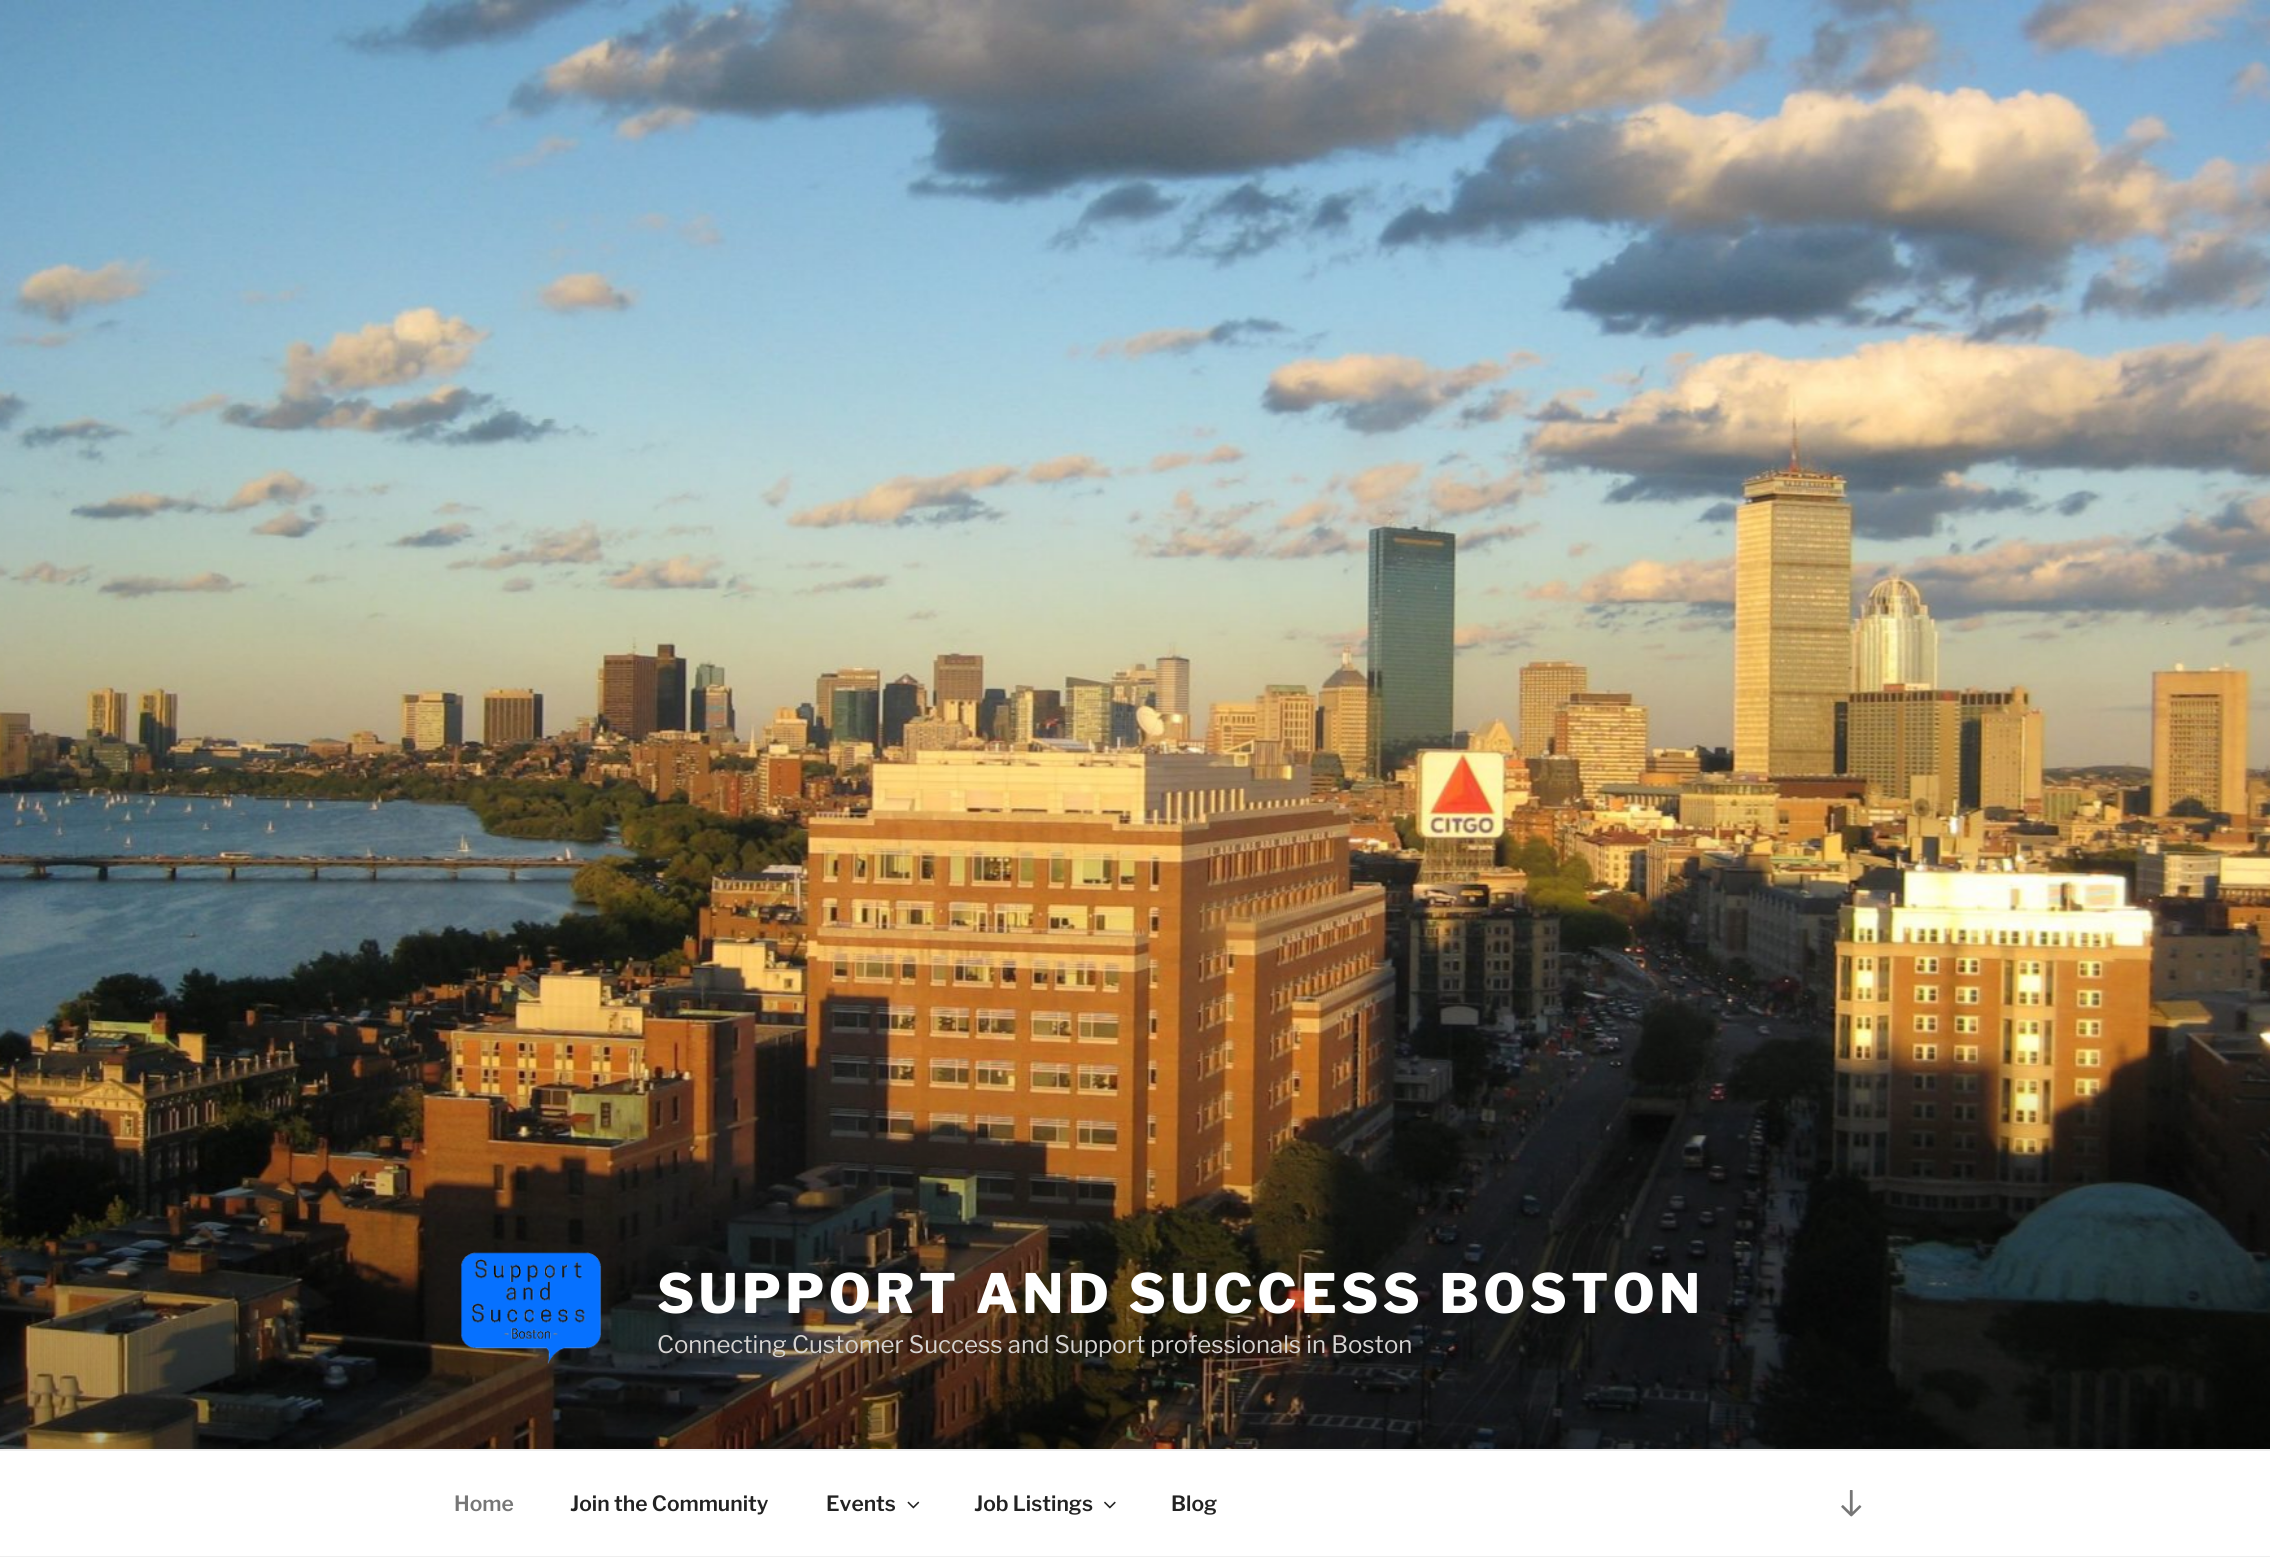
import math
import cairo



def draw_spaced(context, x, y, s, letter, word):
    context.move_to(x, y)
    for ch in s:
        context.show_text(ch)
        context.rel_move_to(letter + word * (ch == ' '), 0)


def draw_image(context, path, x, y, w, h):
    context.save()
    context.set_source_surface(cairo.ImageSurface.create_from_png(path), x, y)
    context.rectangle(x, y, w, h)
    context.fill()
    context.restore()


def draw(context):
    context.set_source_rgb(1, 1, 1)
    context.paint()
    draw_image(context, "images/1.png", 0, 0, 2270, 1449)
    gradient = cairo.LinearGradient(1136, 1042, 1136, 1557)
    gradient.add_color_stop_rgba(0, 0, 0, 0, 0)
    gradient.add_color_stop_rgba(0.75, 0, 0, 0, 0.3)
    gradient.add_color_stop_rgba(1, 0, 0, 0, 0.3)
    context.set_source(gradient)
    context.rectangle(0, 1070, 2270, 379)
    context.fill()
    draw_image(context, "images/2.png", 461, 1252, 141, 112)
    context.set_source_rgb(238 / 255, 238 / 255, 238 / 255)
    context.rectangle(0, 1449, 2270, 2)
    context.fill()
    context.rectangle(0, 1556, 2270, 1)
    context.fill()
    draw_image(context, "images/3.png", 907, 1501, 13, 8)
    draw_image(context, "images/4.png", 1104, 1501, 12, 8)
    draw_image(context, "images/5.png", 1841, 1490, 21, 27)
    context.select_font_face("Libre Franklin ExtraBold")
    context.set_font_size(54)
    context.set_source_rgb(1, 1, 1)
    draw_spaced(context, 657, 1313, "SUPPORT AND SUCCESS BOSTON", 4.3, 0)
    context.select_font_face("Libre Franklin")
    context.set_font_size(24)
    context.set_source_rgb(214 / 255, 212 / 255, 210 / 255)
    context.move_to(657, 1353)
    context.show_text("Connecting Customer Success and Support professionals in Boston")
    context.select_font_face("Libre Franklin SemiBold")
    context.set_font_size(21)
    context.set_source_rgb(118 / 255, 118 / 255, 118 / 255)
    context.move_to(454, 1511)
    context.show_text("Home")
    context.set_source_rgb(34 / 255, 34 / 255, 34 / 255)
    context.move_to(570, 1511)
    context.show_text("Join the Community")
    context.move_to(826, 1511)
    context.show_text("Events")
    context.move_to(974, 1511)
    context.show_text("Job Listings")
    context.move_to(1171, 1511)
    context.show_text("Blog")


surface = cairo.ImageSurface(cairo.Format.RGB24, 2270, 1557)
context = cairo.Context(surface)
options = cairo.FontOptions()
options.set_hint_metrics(cairo.HintMetrics.OFF)
options.set_hint_style(cairo.HintStyle.NONE)
context.set_font_options(options)
context.set_miter_limit(4)
draw(context)
surface.write_to_png("out.png")
